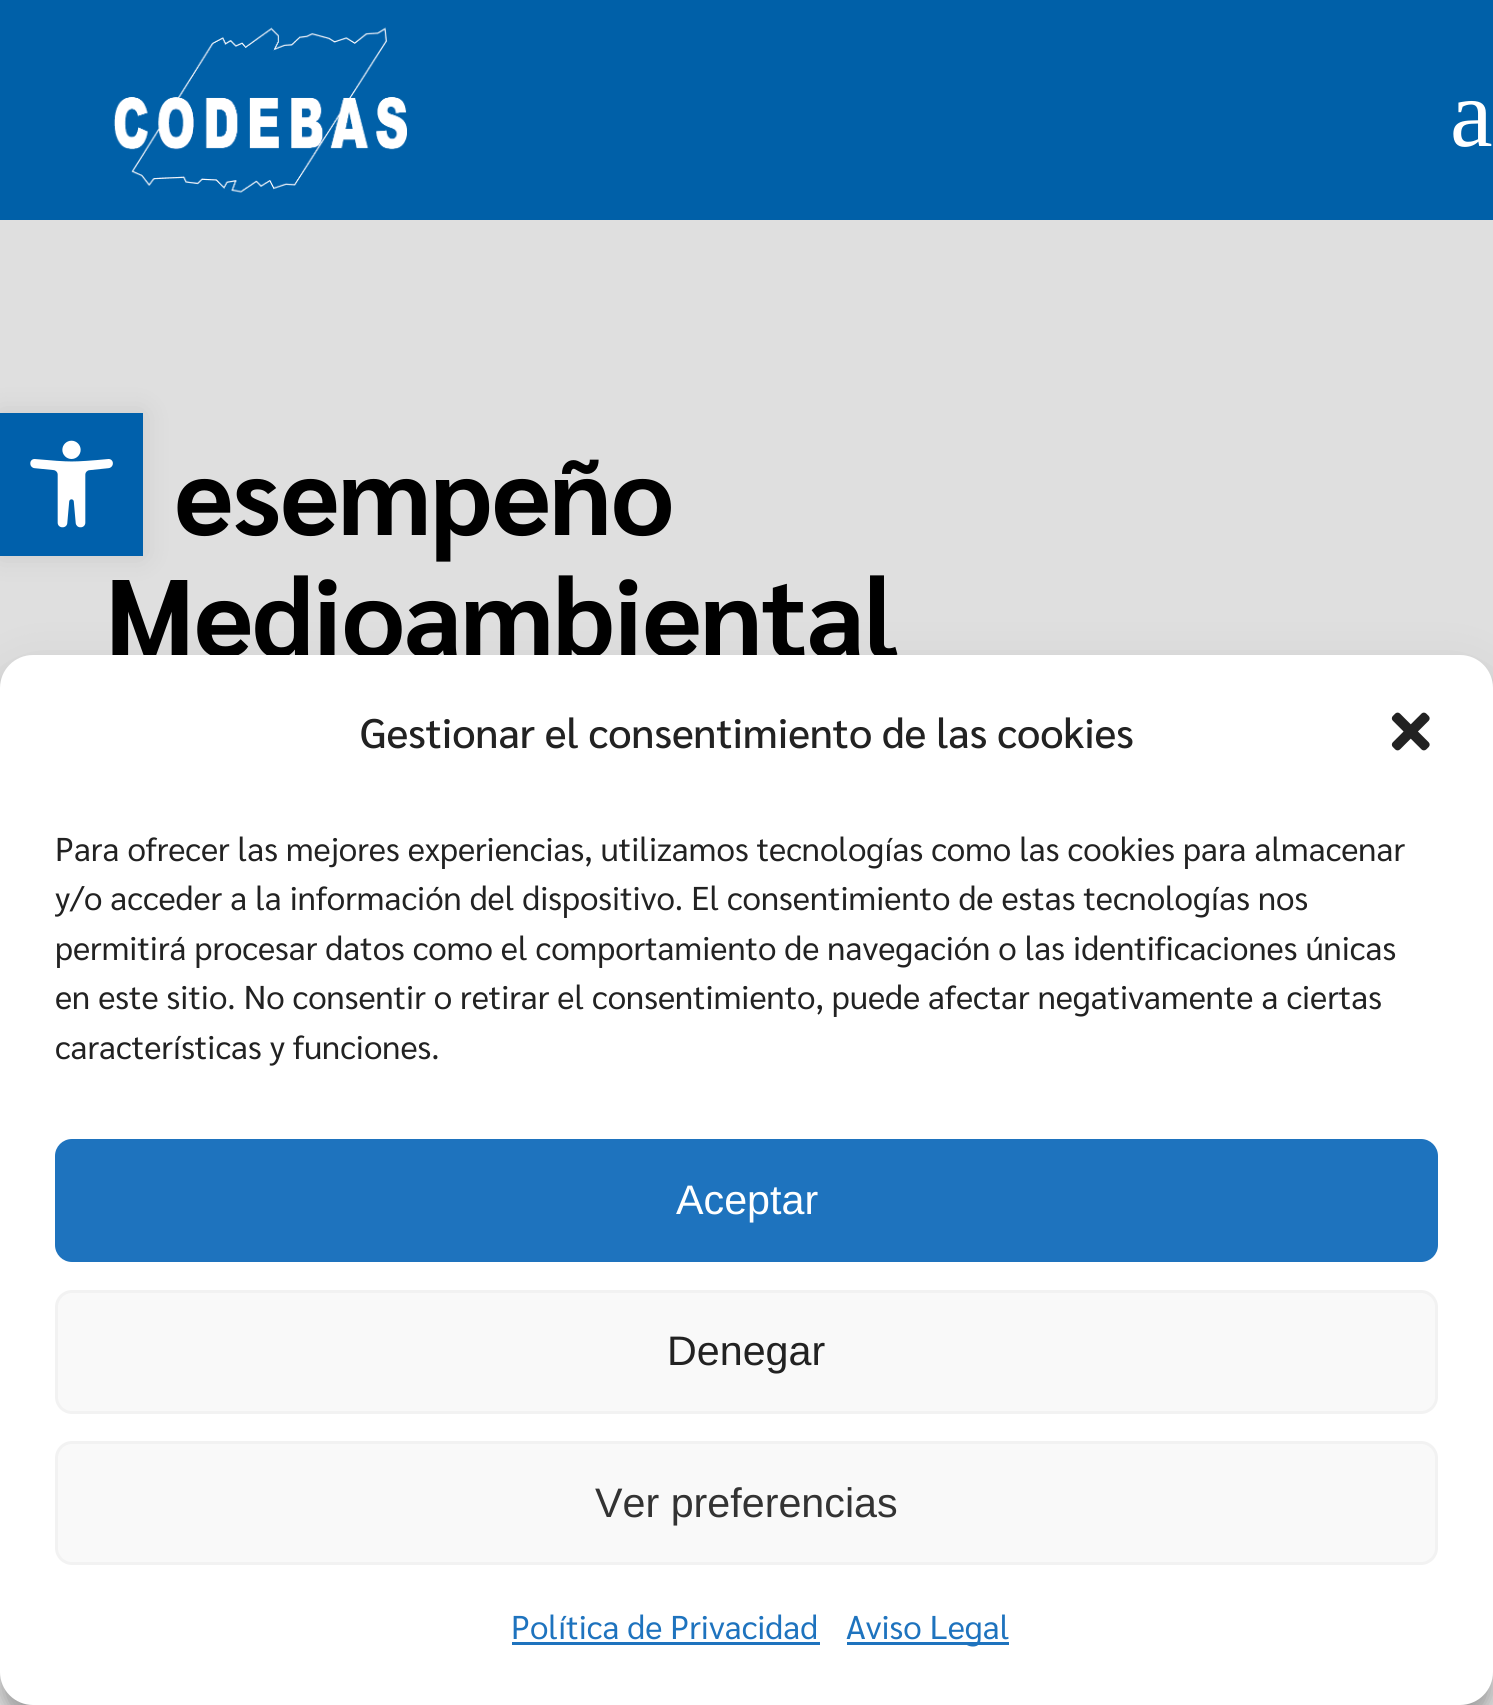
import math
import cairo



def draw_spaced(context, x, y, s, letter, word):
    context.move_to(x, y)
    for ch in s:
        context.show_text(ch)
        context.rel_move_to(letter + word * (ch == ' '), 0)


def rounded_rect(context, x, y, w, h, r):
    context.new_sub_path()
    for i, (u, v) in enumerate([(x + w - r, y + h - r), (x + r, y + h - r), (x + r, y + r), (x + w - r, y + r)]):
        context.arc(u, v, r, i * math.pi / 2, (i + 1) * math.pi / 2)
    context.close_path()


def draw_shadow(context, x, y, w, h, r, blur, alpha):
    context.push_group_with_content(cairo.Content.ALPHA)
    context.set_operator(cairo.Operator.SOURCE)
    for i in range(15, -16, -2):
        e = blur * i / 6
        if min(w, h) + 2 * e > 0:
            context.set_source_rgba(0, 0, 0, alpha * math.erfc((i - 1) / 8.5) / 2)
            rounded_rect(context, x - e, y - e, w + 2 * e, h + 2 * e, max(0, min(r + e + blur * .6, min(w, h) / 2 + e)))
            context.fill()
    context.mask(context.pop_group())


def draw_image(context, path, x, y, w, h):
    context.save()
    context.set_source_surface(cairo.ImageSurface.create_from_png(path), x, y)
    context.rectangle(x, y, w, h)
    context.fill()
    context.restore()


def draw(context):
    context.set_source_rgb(244 / 255, 244 / 255, 244 / 255)
    context.paint()
    context.set_source_rgb(223 / 255, 223 / 255, 223 / 255)
    context.rectangle(0, 220, 1493, 468)
    context.fill()
    context.set_source_rgb(0, 0, 0)
    draw_shadow(context, 0, 413, 143, 143, 0, 14, 0.1)
    context.set_source_rgb(0, 96 / 255, 171 / 255)
    context.rectangle(0, 413, 143, 143)
    context.fill()
    draw_image(context, "images/1.png", 30, 440, 83, 88)
    context.set_source_rgb(0, 96 / 255, 168 / 255)
    context.rectangle(0, 0, 1493, 220)
    context.fill()
    draw_image(context, "images/2.png", 113, 27, 294, 166)
    context.set_source_rgb(0, 0, 0)
    draw_shadow(context, 0, 671, 1493, 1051, 33, 8, 0.23)
    draw_shadow(context, 0, 682, 1493, 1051, 33, 27.5, 0.19)
    context.select_font_face("Liberation Serif")
    context.set_font_size(96)
    context.set_source_rgb(1, 1, 1)
    context.move_to(1450, 146)
    context.show_text("a")
    context.select_font_face("Sarabun", cairo.FontSlant.NORMAL, cairo.FontWeight.BOLD)
    context.set_font_size(110)
    context.set_source_rgb(0, 0, 0)
    draw_spaced(context, 174, 535, "esempeño", -1.1, 0)
    draw_spaced(context, 105, 657, "Medioambiental", -1.1, 0)
    context.set_source_rgb(1, 1, 1)
    rounded_rect(context, 0, 655, 1493, 1050, 33)
    context.fill()
    context.select_font_face("Sarabun Medium")
    context.set_font_size(41.25)
    context.set_source_rgb(34 / 255, 34 / 255, 34 / 255)
    context.move_to(360, 748)
    context.show_text("Gestionar el consentimiento de las cookies")
    draw_image(context, "images/3.png", 1391, 712, 39, 39)
    context.select_font_face("Sarabun")
    context.set_font_size(33)
    context.move_to(55, 861)
    context.show_text("Para ofrecer las mejores experiencias, utilizamos tecnologías como las cookies para almacenar")
    context.move_to(55, 910)
    context.show_text("y/o acceder a la información del dispositivo. El consentimiento de estas tecnologías nos")
    context.move_to(55, 960)
    context.show_text("permitirá procesar datos como el comportamiento de navegación o las identificaciones únicas")
    context.move_to(55, 1009)
    context.show_text("en este sitio. No consentir o retirar el consentimiento, puede afectar negativamente a ciertas")
    context.move_to(55, 1059)
    context.show_text("características y funciones.")
    context.set_source_rgb(30 / 255, 115 / 255, 190 / 255)
    rounded_rect(context, 56.5, 1140.5, 1380, 120, 15.5)
    context.fill_preserve()
    context.set_line_width(3)
    context.stroke()
    context.select_font_face("Liberation Sans")
    context.set_font_size(41.25)
    context.set_source_rgb(1, 1, 1)
    context.move_to(676, 1214)
    context.show_text("Aceptar")
    context.set_source_rgb(249 / 255, 249 / 255, 249 / 255)
    rounded_rect(context, 56.5, 1291.5, 1380, 121, 15.5)
    context.fill_preserve()
    context.set_source_rgb(242 / 255, 242 / 255, 242 / 255)
    context.stroke()
    context.set_source_rgb(34 / 255, 34 / 255, 34 / 255)
    context.move_to(667, 1365)
    context.show_text("Denegar")
    context.set_source_rgb(249 / 255, 249 / 255, 249 / 255)
    rounded_rect(context, 56.5, 1442.5, 1380, 121, 15.5)
    context.fill_preserve()
    context.set_source_rgb(242 / 255, 242 / 255, 242 / 255)
    context.stroke()
    context.set_source_rgb(51 / 255, 51 / 255, 51 / 255)
    context.move_to(595, 1517)
    context.show_text("Ver preferencias")
    context.select_font_face("Sarabun")
    context.set_font_size(33)
    context.set_source_rgb(30 / 255, 115 / 255, 190 / 255)
    context.move_to(511, 1639)
    context.show_text("Política de Privacidad")
    context.rectangle(512, 1642, 308, 3)
    context.fill()
    context.rectangle(847, 1642, 162, 3)
    context.fill()
    context.move_to(846, 1639)
    context.show_text("Aviso Legal")


surface = cairo.ImageSurface(cairo.Format.RGB24, 1493, 1705)
context = cairo.Context(surface)
options = cairo.FontOptions()
options.set_hint_metrics(cairo.HintMetrics.OFF)
options.set_hint_style(cairo.HintStyle.NONE)
context.set_font_options(options)
context.set_miter_limit(4)
draw(context)
surface.write_to_png("out.png")
